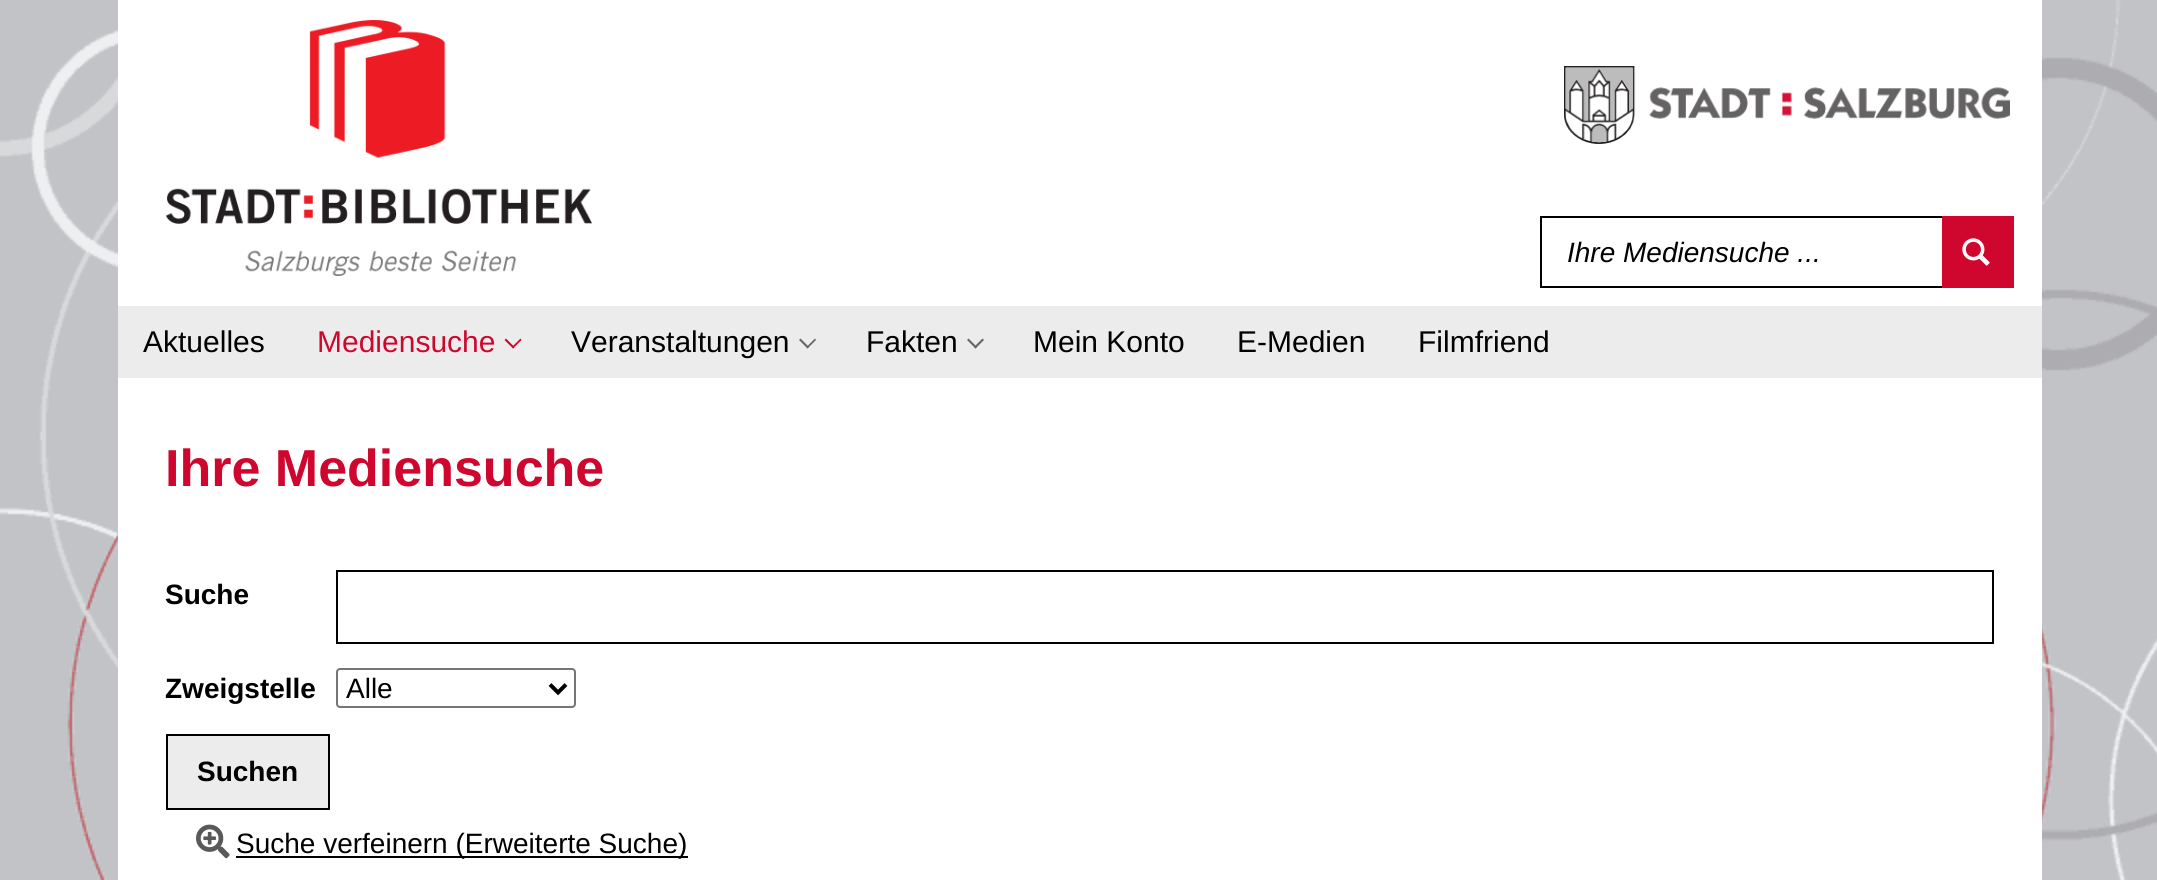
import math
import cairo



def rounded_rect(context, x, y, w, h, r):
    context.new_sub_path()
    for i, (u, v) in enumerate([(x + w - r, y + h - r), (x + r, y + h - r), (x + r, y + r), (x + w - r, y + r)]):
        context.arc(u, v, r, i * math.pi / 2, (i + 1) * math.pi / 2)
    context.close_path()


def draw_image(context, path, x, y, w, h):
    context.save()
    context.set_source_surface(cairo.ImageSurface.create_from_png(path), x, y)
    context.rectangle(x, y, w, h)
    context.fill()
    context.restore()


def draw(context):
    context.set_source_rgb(1, 1, 1)
    context.paint()
    draw_image(context, "images/1.png", 0, 0, 2157, 880)
    context.set_source_rgb(1, 1, 1)
    context.rectangle(118, 0, 1924, 880)
    context.fill()
    draw_image(context, "images/2.png", 166, 20, 426, 256)
    draw_image(context, "images/3.png", 1564, 66, 446, 78)
    context.rectangle(1541, 217, 472, 70)
    context.set_source_rgb(0, 0, 0)
    context.stroke()
    context.set_source_rgb(207 / 255, 7 / 255, 47 / 255)
    context.rectangle(1942, 216, 72, 72)
    context.fill()
    draw_image(context, "images/4.png", 1962, 238, 28, 28)
    context.set_source_rgb(236 / 255, 236 / 255, 236 / 255)
    context.rectangle(118, 306, 1924, 72)
    context.fill()
    context.set_source_rgb(207 / 255, 7 / 255, 47 / 255)
    context.new_path()
    context.move_to(520.5, 338.5)
    context.line_to(521.5, 340)
    context.line_to(513, 348.5)
    context.line_to(512, 347)
    context.close_path()
    context.fill()
    context.new_path()
    context.move_to(506, 338.5)
    context.line_to(514.5, 347)
    context.line_to(513, 348.5)
    context.line_to(504.5, 340)
    context.close_path()
    context.fill()
    context.set_source_rgb(102 / 255, 102 / 255, 102 / 255)
    context.new_path()
    context.move_to(815, 338.5)
    context.line_to(816, 340)
    context.line_to(807.5, 348.5)
    context.line_to(806.5, 347)
    context.close_path()
    context.fill()
    context.new_path()
    context.move_to(800.5, 338.5)
    context.line_to(809, 347)
    context.line_to(807.5, 348.5)
    context.line_to(799, 340)
    context.close_path()
    context.fill()
    context.new_path()
    context.move_to(982.5, 338.5)
    context.line_to(984, 340)
    context.line_to(975.5, 348.5)
    context.line_to(974, 347)
    context.close_path()
    context.fill()
    context.new_path()
    context.move_to(968.5, 338.5)
    context.line_to(977, 347)
    context.line_to(975.5, 348.5)
    context.line_to(967, 340)
    context.close_path()
    context.fill()
    context.rectangle(337, 571, 1656, 72)
    context.set_source_rgb(0, 0, 0)
    context.stroke()
    rounded_rect(context, 337, 669, 238, 38, 3)
    context.set_source_rgb(118 / 255, 118 / 255, 118 / 255)
    context.stroke()
    context.new_path()
    context.move_to(550, 684.5)
    context.line_to(558, 692.5)
    context.line_to(566, 684.5)
    context.set_source_rgb(0, 0, 0)
    context.set_line_width(4)
    context.stroke()
    context.set_source_rgb(236 / 255, 236 / 255, 236 / 255)
    context.rectangle(167, 735, 162, 74)
    context.fill_preserve()
    context.set_source_rgb(0, 0, 0)
    context.set_line_width(2)
    context.stroke()
    draw_image(context, "images/5.png", 196, 824, 34, 35)
    context.rectangle(236, 856, 452, 2)
    context.fill()
    context.select_font_face("Liberation Sans", cairo.FontSlant.ITALIC)
    context.set_font_size(28)
    context.move_to(1567, 262)
    context.show_text("Ihre Mediensuche ...")
    context.select_font_face("Liberation Sans")
    context.set_font_size(30)
    context.move_to(143, 352)
    context.show_text("Aktuelles")
    context.set_source_rgb(207 / 255, 7 / 255, 47 / 255)
    context.move_to(317, 352)
    context.show_text("Mediensuche")
    context.set_source_rgb(0, 0, 0)
    context.move_to(571, 352)
    context.show_text("Veranstaltungen")
    context.move_to(866, 352)
    context.show_text("Fakten")
    context.move_to(1033, 352)
    context.show_text("Mein Konto")
    context.move_to(1237, 352)
    context.show_text("E-Medien")
    context.move_to(1418, 352)
    context.show_text("Filmfriend")
    context.select_font_face("Liberation Sans", cairo.FontSlant.NORMAL, cairo.FontWeight.BOLD)
    context.set_font_size(52)
    context.set_source_rgb(207 / 255, 7 / 255, 47 / 255)
    context.move_to(165, 486)
    context.show_text("Ihre Mediensuche")
    context.set_font_size(28)
    context.set_source_rgb(0, 0, 0)
    context.move_to(165, 604)
    context.show_text("Suche")
    context.move_to(165, 698)
    context.show_text("Zweigstelle")
    context.select_font_face("Liberation Sans")
    context.move_to(346, 698)
    context.show_text("Alle")
    context.select_font_face("Liberation Sans", cairo.FontSlant.NORMAL, cairo.FontWeight.BOLD)
    context.move_to(197, 781)
    context.show_text("Suchen")
    context.select_font_face("Liberation Sans")
    context.move_to(236, 853)
    context.show_text("Suche verfeinern (Erweiterte Suche)")


surface = cairo.ImageSurface(cairo.Format.RGB24, 2157, 880)
context = cairo.Context(surface)
options = cairo.FontOptions()
options.set_hint_metrics(cairo.HintMetrics.OFF)
options.set_hint_style(cairo.HintStyle.NONE)
context.set_font_options(options)
context.set_miter_limit(4)
draw(context)
surface.write_to_png("out.png")
